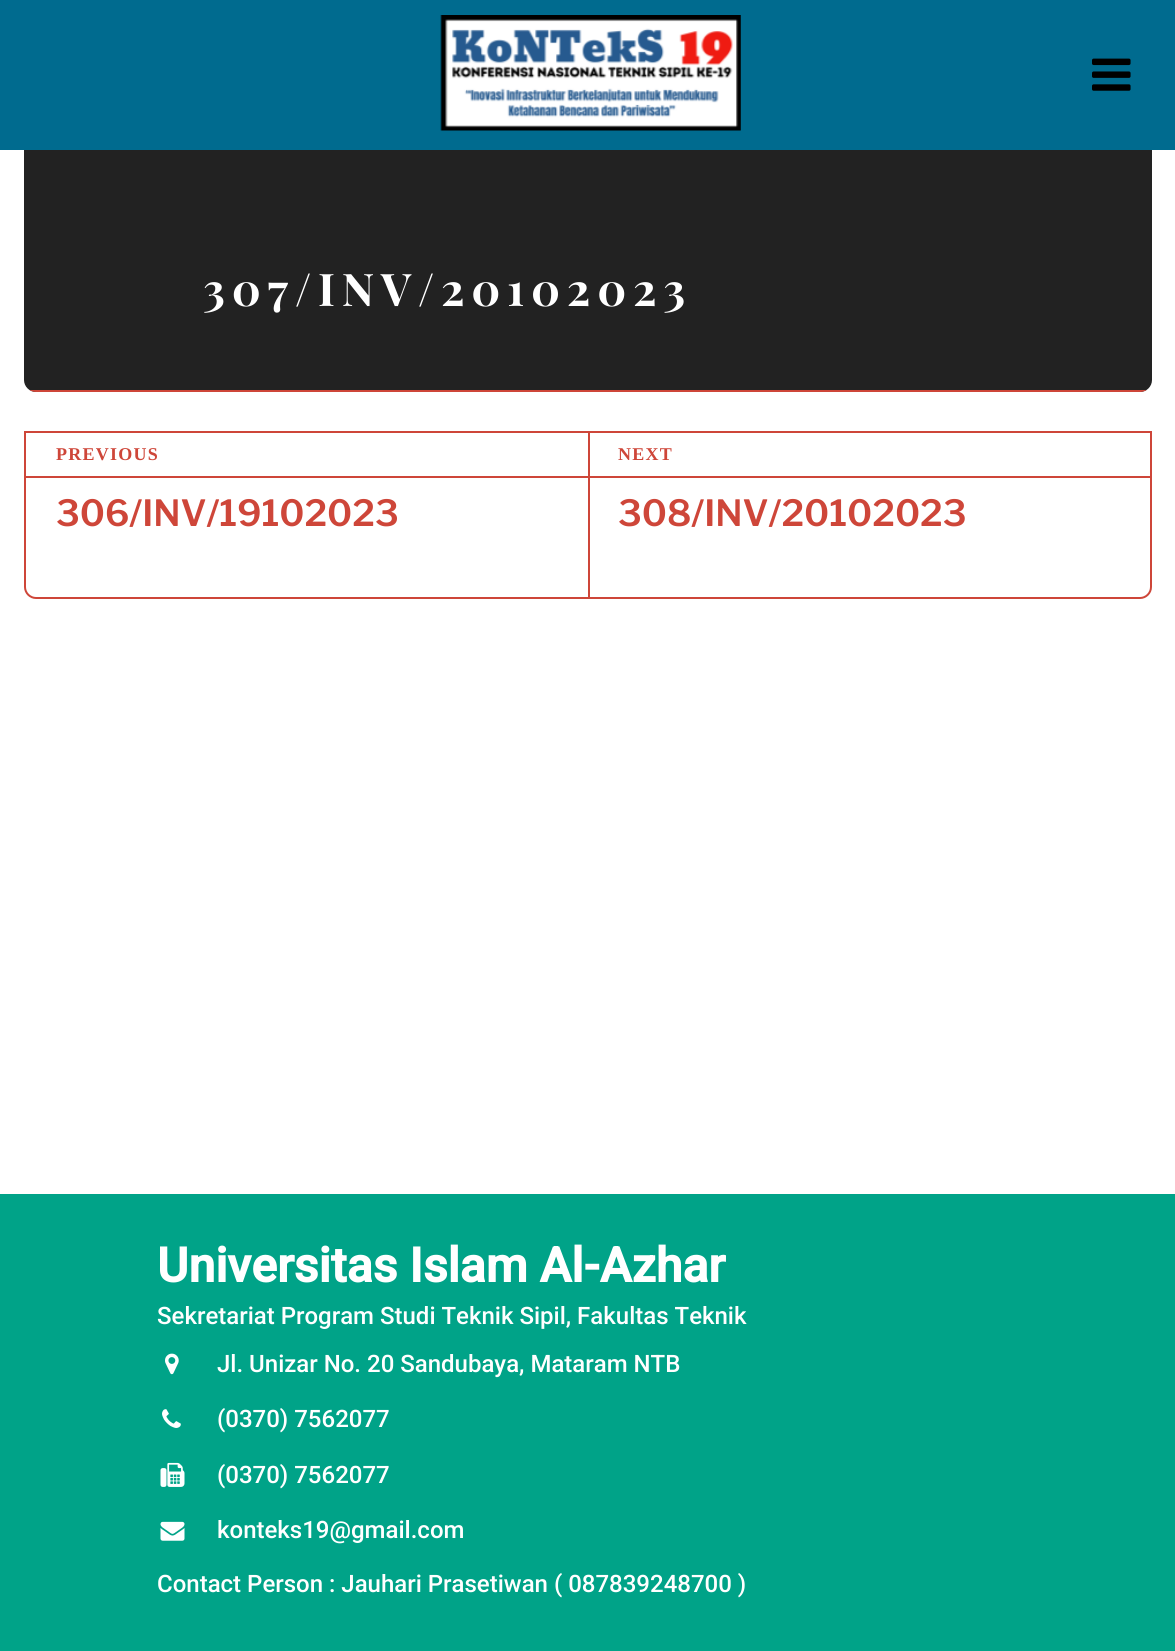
import math
import cairo



def draw_spaced(context, x, y, s, letter, word):
    context.move_to(x, y)
    for ch in s:
        context.show_text(ch)
        context.rel_move_to(letter + word * (ch == ' '), 0)


def draw_image(context, path, x, y, w, h):
    context.save()
    context.set_source_surface(cairo.ImageSurface.create_from_png(path), x, y)
    context.rectangle(x, y, w, h)
    context.fill()
    context.restore()


def draw(context):
    context.set_source_rgb(1, 1, 1)
    context.paint()
    context.set_source_rgb(0, 107 / 255, 143 / 255)
    context.rectangle(0, 0, 1175, 150)
    context.fill()
    draw_image(context, "images/1.png", 440, 15, 301, 116)
    draw_image(context, "images/2.png", 1092, 58, 39, 33)
    context.set_source_rgb(34 / 255, 34 / 255, 34 / 255)
    context.new_path()
    context.move_to(24, 150)
    context.line_to(1152, 150)
    context.line_to(1152, 380)
    context.curve_to(1152, 386.5, 1146.5, 392, 1140, 392)
    context.line_to(36, 392)
    context.curve_to(29.5, 392, 24, 386.5, 24, 380)
    context.close_path()
    context.fill()
    context.save()
    context.new_path()
    context.move_to(24, 150)
    context.line_to(1152, 150)
    context.line_to(1152, 380)
    context.curve_to(1152, 386.5, 1146.5, 392, 1140, 392)
    context.line_to(36, 392)
    context.curve_to(29.5, 392, 24, 386.5, 24, 380)
    context.close_path()
    context.clip()
    context.set_source_rgb(206 / 255, 70 / 255, 57 / 255)
    context.rectangle(24, 390, 1128, 2)
    context.fill()
    context.restore()
    context.new_path()
    context.move_to(25, 432)
    context.line_to(1151, 432)
    context.line_to(1151, 587)
    context.curve_to(1151, 593, 1146, 598, 1140, 598)
    context.line_to(36, 598)
    context.curve_to(30, 598, 25, 593, 25, 587)
    context.close_path()
    context.set_source_rgb(206 / 255, 70 / 255, 57 / 255)
    context.stroke()
    context.rectangle(588, 432, 2, 165)
    context.fill()
    context.rectangle(26, 476, 1125, 2)
    context.fill()
    context.set_source_rgb(0, 163 / 255, 136 / 255)
    context.rectangle(0, 1194, 1175, 457)
    context.fill()
    draw_image(context, "images/3.png", 165, 1353, 14, 22)
    draw_image(context, "images/4.png", 162, 1409, 19, 19)
    draw_image(context, "images/5.png", 160, 1462, 25, 25)
    draw_image(context, "images/6.png", 160, 1521, 25, 20)
    context.select_font_face("Playfair Display SC", cairo.FontSlant.NORMAL, cairo.FontWeight.BOLD)
    context.set_font_size(45)
    context.set_source_rgb(1, 1, 1)
    draw_spaced(context, 203, 306, "307/INV/20102023", 6.75, 0)
    context.select_font_face("Liberation Serif", cairo.FontSlant.NORMAL, cairo.FontWeight.BOLD)
    context.set_font_size(18)
    context.set_source_rgb(206 / 255, 70 / 255, 57 / 255)
    draw_spaced(context, 56, 460, "PREVIOUS", 1.25, 0)
    context.select_font_face("Libre Franklin SemiBold")
    context.set_font_size(36)
    context.move_to(56, 526)
    context.show_text("306/INV/19102023")
    context.select_font_face("Liberation Serif", cairo.FontSlant.NORMAL, cairo.FontWeight.BOLD)
    context.set_font_size(18)
    draw_spaced(context, 618, 460, "NEXT", 1.25, 0)
    context.select_font_face("Libre Franklin SemiBold")
    context.set_font_size(36)
    context.move_to(618, 526)
    context.show_text("308/INV/20102023")
    context.select_font_face("Roboto", cairo.FontSlant.NORMAL, cairo.FontWeight.BOLD)
    context.set_font_size(48)
    context.set_source_rgb(1, 1, 1)
    context.move_to(157, 1282)
    context.show_text("Universitas Islam Al-Azhar")
    context.select_font_face("Roboto Medium")
    context.set_font_size(24)
    context.move_to(157, 1324)
    context.show_text("Sekretariat Program Studi Teknik Sipil, Fakultas Teknik")
    context.move_to(217, 1372)
    context.show_text("Jl. Unizar No. 20 Sandubaya, Mataram NTB")
    context.move_to(217, 1427)
    context.show_text("(0370) 7562077")
    context.move_to(217, 1483)
    context.show_text("(0370) 7562077")
    context.move_to(217, 1538)
    context.show_text("konteks19@gmail.com")
    context.move_to(157, 1592)
    context.show_text("Contact Person : Jauhari Prasetiwan ( 087839248700 )")


surface = cairo.ImageSurface(cairo.Format.RGB24, 1175, 1651)
context = cairo.Context(surface)
options = cairo.FontOptions()
options.set_hint_metrics(cairo.HintMetrics.OFF)
options.set_hint_style(cairo.HintStyle.NONE)
context.set_font_options(options)
context.set_miter_limit(4)
draw(context)
surface.write_to_png("out.png")
